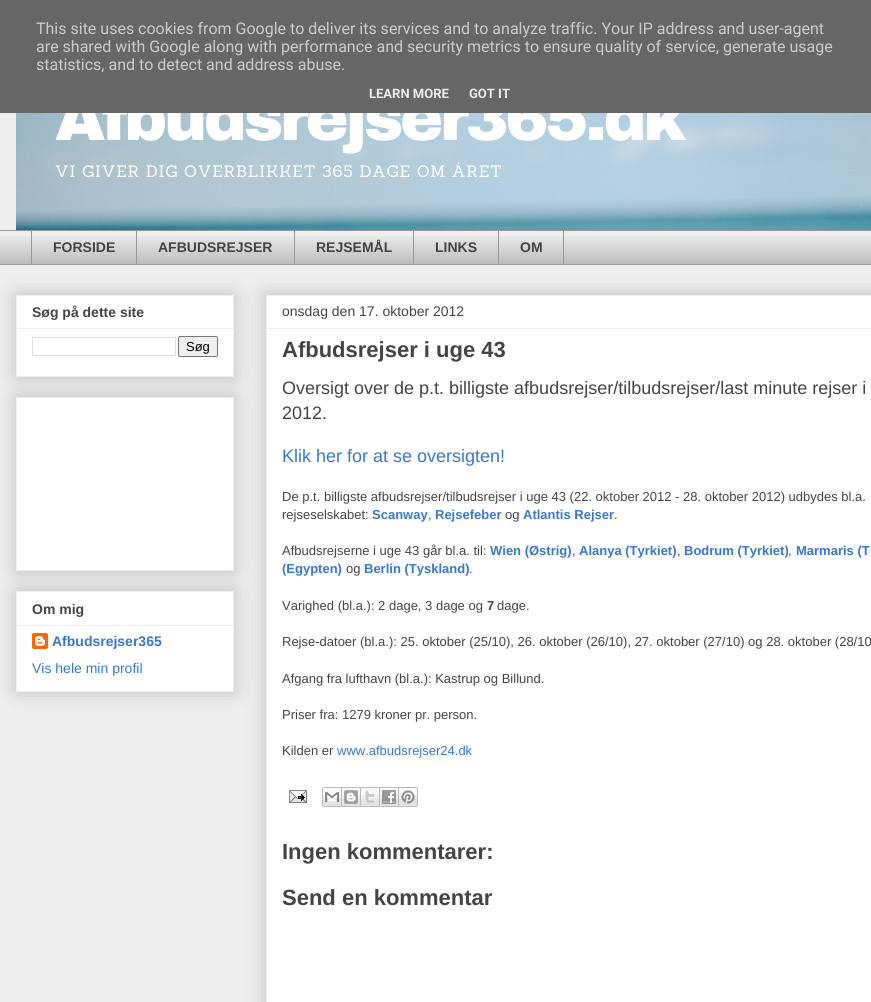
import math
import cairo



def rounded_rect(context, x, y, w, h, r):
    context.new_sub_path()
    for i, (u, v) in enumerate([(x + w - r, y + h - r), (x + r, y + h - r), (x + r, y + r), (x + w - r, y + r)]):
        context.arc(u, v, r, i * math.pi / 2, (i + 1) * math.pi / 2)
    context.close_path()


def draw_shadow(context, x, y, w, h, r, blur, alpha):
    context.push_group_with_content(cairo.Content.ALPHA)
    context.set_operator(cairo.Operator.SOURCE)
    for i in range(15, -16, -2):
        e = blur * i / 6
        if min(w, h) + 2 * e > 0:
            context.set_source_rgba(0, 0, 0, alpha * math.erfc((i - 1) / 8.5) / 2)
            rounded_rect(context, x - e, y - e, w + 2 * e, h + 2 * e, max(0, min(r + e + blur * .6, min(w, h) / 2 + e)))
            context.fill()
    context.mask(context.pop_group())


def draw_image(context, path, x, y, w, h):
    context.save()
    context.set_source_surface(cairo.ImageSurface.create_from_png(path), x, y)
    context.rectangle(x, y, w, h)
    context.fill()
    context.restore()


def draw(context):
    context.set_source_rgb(238 / 255, 238 / 255, 238 / 255)
    context.paint()
    context.set_source_rgb(102 / 255, 102 / 255, 102 / 255)
    context.rectangle(0, 0, 871, 113)
    context.fill()
    draw_image(context, "images/1.png", 16, 113, 855, 117)
    draw_image(context, "images/2.png", 0, 236, 871, 28)
    context.set_source_rgb(153 / 255, 153 / 255, 153 / 255)
    context.rectangle(0, 230, 871, 1)
    context.fill()
    context.rectangle(31, 230, 1, 35)
    context.fill()
    context.rectangle(136, 230, 1, 35)
    context.fill()
    context.rectangle(294, 230, 1, 35)
    context.fill()
    context.rectangle(413, 230, 1, 35)
    context.fill()
    context.rectangle(498.5, 230.5, 65, 34)
    context.set_line_width(1)
    context.stroke()
    context.rectangle(0, 264, 871, 1)
    context.fill()
    context.set_source_rgb(0, 0, 0)
    draw_shadow(context, 16, 295, 218, 82, 0, 10, 0.2)
    context.set_source_rgb(1, 1, 1)
    context.rectangle(16.5, 295.5, 217, 81)
    context.fill_preserve()
    context.set_source_rgb(238 / 255, 238 / 255, 238 / 255)
    context.stroke()
    context.rectangle(17, 328, 216, 1)
    context.fill()
    context.rectangle(32.5, 337.5, 143, 18)
    context.set_source_rgb(221 / 255, 221 / 255, 221 / 255)
    context.stroke()
    context.set_source_rgb(239 / 255, 239 / 255, 239 / 255)
    rounded_rect(context, 178.5, 336.5, 39, 20, 1.5)
    context.fill_preserve()
    context.set_source_rgb(118 / 255, 118 / 255, 118 / 255)
    context.stroke()
    context.set_source_rgb(0, 0, 0)
    draw_shadow(context, 16, 397, 218, 174, 0, 10, 0.2)
    context.set_source_rgb(1, 1, 1)
    context.rectangle(16.5, 397.5, 217, 173)
    context.fill_preserve()
    context.set_source_rgb(238 / 255, 238 / 255, 238 / 255)
    context.stroke()
    context.set_source_rgb(0, 0, 0)
    draw_shadow(context, 16, 591, 218, 101, 0, 10, 0.2)
    context.set_source_rgb(1, 1, 1)
    context.rectangle(16.5, 591.5, 217, 100)
    context.fill_preserve()
    context.set_source_rgb(238 / 255, 238 / 255, 238 / 255)
    context.stroke()
    context.rectangle(17, 625, 216, 1)
    context.fill()
    draw_image(context, "images/3.png", 32, 633, 16, 16)
    context.set_source_rgb(0, 0, 0)
    draw_shadow(context, 266, 295, 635, 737, 0, 10, 0.2)
    context.set_source_rgb(1, 1, 1)
    context.rectangle(266.5, 295.5, 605, 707)
    context.fill_preserve()
    context.set_source_rgb(238 / 255, 238 / 255, 238 / 255)
    context.stroke()
    context.rectangle(267, 328, 604, 1)
    context.fill()
    draw_image(context, "images/4.png", 289, 790, 18, 13)
    draw_image(context, "images/5.png", 322, 787, 20, 20)
    draw_image(context, "images/6.png", 342, 787, 19, 20)
    draw_image(context, "images/7.png", 361, 787, 19, 20)
    draw_image(context, "images/8.png", 380, 787, 19, 20)
    draw_image(context, "images/9.png", 399, 787, 19, 20)
    context.select_font_face("Roboto")
    context.set_font_size(16)
    context.set_source_rgb(204 / 255, 204 / 255, 204 / 255)
    context.move_to(36, 34)
    context.show_text("This site uses cookies from Google to deliver its services and to analyze traffic. Your IP address and user-agent")
    context.move_to(36, 52)
    context.show_text("are shared with Google along with performance and security metrics to ensure quality of service, generate usage")
    context.move_to(36, 70)
    context.show_text("statistics, and to detect and address abuse.")
    context.select_font_face("Roboto", cairo.FontSlant.NORMAL, cairo.FontWeight.BOLD)
    context.set_font_size(13)
    context.set_source_rgb(238 / 255, 238 / 255, 238 / 255)
    context.move_to(369, 98)
    context.show_text("LEARN MORE")
    context.move_to(469, 98)
    context.show_text("GOT IT")
    context.select_font_face("Liberation Sans", cairo.FontSlant.NORMAL, cairo.FontWeight.BOLD)
    context.set_font_size(14)
    context.set_source_rgb(68 / 255, 68 / 255, 68 / 255)
    context.move_to(53, 252)
    context.show_text("FORSIDE")
    context.move_to(158, 252)
    context.show_text("AFBUDSREJSER")
    context.move_to(316, 252)
    context.show_text("REJSEMÅL")
    context.move_to(435, 252)
    context.show_text("LINKS")
    context.move_to(520, 252)
    context.show_text("OM")
    context.move_to(32, 317)
    context.show_text("Søg på dette site")
    context.select_font_face("Liberation Sans")
    context.set_font_size(13)
    context.set_source_rgb(0, 0, 0)
    context.move_to(186, 351)
    context.show_text("Søg")
    context.select_font_face("Liberation Sans", cairo.FontSlant.NORMAL, cairo.FontWeight.BOLD)
    context.set_font_size(14)
    context.set_source_rgb(68 / 255, 68 / 255, 68 / 255)
    context.move_to(32, 614)
    context.show_text("Om mig")
    context.set_source_rgb(55 / 255, 120 / 255, 205 / 255)
    context.move_to(52, 646)
    context.show_text("Afbudsrejser365")
    context.select_font_face("Liberation Sans")
    context.move_to(32, 673)
    context.show_text("Vis hele min profil")
    context.set_source_rgb(68 / 255, 68 / 255, 68 / 255)
    context.move_to(282, 316)
    context.show_text("onsdag den 17. oktober 2012")
    context.select_font_face("Liberation Sans", cairo.FontSlant.NORMAL, cairo.FontWeight.BOLD)
    context.set_font_size(22)
    context.move_to(282, 357)
    context.show_text("Afbudsrejser i uge 43")
    context.select_font_face("Liberation Sans")
    context.set_font_size(18)
    context.move_to(282, 394)
    context.show_text("Oversigt over de p.t. billigste afbudsrejser/tilbudsrejser/last minute rejser i")
    context.move_to(282, 419)
    context.show_text("2012.")
    context.set_source_rgb(55 / 255, 120 / 255, 205 / 255)
    context.move_to(282, 462)
    context.show_text("Klik her for at se oversigten!")
    context.set_font_size(13)
    context.set_source_rgb(68 / 255, 68 / 255, 68 / 255)
    context.move_to(282, 501)
    context.show_text("De p.t. billigste afbudsrejser/tilbudsrejser i uge 43 (22. oktober 2012 - 28. oktober 2012) udbydes bl.a.")
    context.move_to(282, 519)
    context.show_text("rejseselskabet:")
    context.select_font_face("Liberation Sans", cairo.FontSlant.NORMAL, cairo.FontWeight.BOLD)
    context.set_source_rgb(55 / 255, 120 / 255, 205 / 255)
    context.move_to(372, 519)
    context.show_text("Scanway")
    context.select_font_face("Liberation Sans")
    context.set_source_rgb(68 / 255, 68 / 255, 68 / 255)
    context.move_to(428, 519)
    context.show_text(",")
    context.select_font_face("Liberation Sans", cairo.FontSlant.NORMAL, cairo.FontWeight.BOLD)
    context.set_source_rgb(55 / 255, 120 / 255, 205 / 255)
    context.move_to(435, 519)
    context.show_text("Rejsefeber")
    context.select_font_face("Liberation Sans")
    context.set_source_rgb(68 / 255, 68 / 255, 68 / 255)
    context.move_to(505, 519)
    context.show_text("og")
    context.select_font_face("Liberation Sans", cairo.FontSlant.NORMAL, cairo.FontWeight.BOLD)
    context.set_source_rgb(55 / 255, 120 / 255, 205 / 255)
    context.move_to(523, 519)
    context.show_text("Atlantis Rejser")
    context.select_font_face("Liberation Sans")
    context.set_source_rgb(68 / 255, 68 / 255, 68 / 255)
    context.move_to(614, 519)
    context.show_text(".")
    context.move_to(282, 555)
    context.show_text("Afbudsrejserne i uge 43 går bl.a. til:")
    context.select_font_face("Liberation Sans", cairo.FontSlant.NORMAL, cairo.FontWeight.BOLD)
    context.set_source_rgb(55 / 255, 120 / 255, 205 / 255)
    context.move_to(490, 555)
    context.show_text("Wien (Østrig)")
    context.select_font_face("Liberation Sans")
    context.set_source_rgb(68 / 255, 68 / 255, 68 / 255)
    context.move_to(572, 555)
    context.show_text(",")
    context.select_font_face("Liberation Sans", cairo.FontSlant.NORMAL, cairo.FontWeight.BOLD)
    context.set_source_rgb(55 / 255, 120 / 255, 205 / 255)
    context.move_to(579, 555)
    context.show_text("Alanya (Tyrkiet)")
    context.select_font_face("Liberation Sans")
    context.set_source_rgb(68 / 255, 68 / 255, 68 / 255)
    context.move_to(677, 555)
    context.show_text(",")
    context.select_font_face("Liberation Sans", cairo.FontSlant.NORMAL, cairo.FontWeight.BOLD)
    context.set_source_rgb(55 / 255, 120 / 255, 205 / 255)
    context.move_to(684, 555)
    context.show_text("Bodrum (Tyrkiet)")
    context.select_font_face("Liberation Sans")
    context.set_source_rgb(68 / 255, 68 / 255, 68 / 255)
    context.move_to(788, 555)
    context.show_text(",")
    context.select_font_face("Liberation Sans", cairo.FontSlant.NORMAL, cairo.FontWeight.BOLD)
    context.set_source_rgb(55 / 255, 120 / 255, 205 / 255)
    context.move_to(796, 555)
    context.show_text("Marmaris (T")
    context.move_to(282, 573)
    context.show_text("(Egypten)")
    context.select_font_face("Liberation Sans")
    context.set_source_rgb(68 / 255, 68 / 255, 68 / 255)
    context.move_to(346, 573)
    context.show_text("og")
    context.select_font_face("Liberation Sans", cairo.FontSlant.NORMAL, cairo.FontWeight.BOLD)
    context.set_source_rgb(55 / 255, 120 / 255, 205 / 255)
    context.move_to(364, 573)
    context.show_text("Berlin (Tyskland)")
    context.select_font_face("Liberation Sans")
    context.set_source_rgb(68 / 255, 68 / 255, 68 / 255)
    context.move_to(469, 573)
    context.show_text(".")
    context.move_to(282, 610)
    context.show_text("Varighed (bl.a.): 2 dage, 3 dage og")
    context.select_font_face("Liberation Sans", cairo.FontSlant.NORMAL, cairo.FontWeight.BOLD)
    context.move_to(487, 610)
    context.show_text("7")
    context.select_font_face("Liberation Sans")
    context.move_to(497, 610)
    context.show_text("dage.")
    context.move_to(282, 646)
    context.show_text("Rejse-datoer (bl.a.): 25. oktober (25/10), 26. oktober (26/10), 27. oktober (27/10) og 28. oktober (28/10")
    context.move_to(282, 683)
    context.show_text("Afgang fra lufthavn (bl.a.): Kastrup og Billund.")
    context.move_to(282, 719)
    context.show_text("Priser fra: 1279 kroner pr. person.")
    context.move_to(282, 755)
    context.show_text("Kilden er")
    context.set_source_rgb(55 / 255, 120 / 255, 205 / 255)
    context.move_to(337, 755)
    context.show_text("www.afbudsrejser24.dk")
    context.select_font_face("Liberation Sans", cairo.FontSlant.NORMAL, cairo.FontWeight.BOLD)
    context.set_font_size(22)
    context.set_source_rgb(68 / 255, 68 / 255, 68 / 255)
    context.move_to(282, 859)
    context.show_text("Ingen kommentarer:")
    context.move_to(282, 905)
    context.show_text("Send en kommentar")


surface = cairo.ImageSurface(cairo.Format.RGB24, 871, 1002)
context = cairo.Context(surface)
options = cairo.FontOptions()
options.set_hint_metrics(cairo.HintMetrics.OFF)
options.set_hint_style(cairo.HintStyle.NONE)
context.set_font_options(options)
context.set_miter_limit(4)
draw(context)
surface.write_to_png("out.png")
